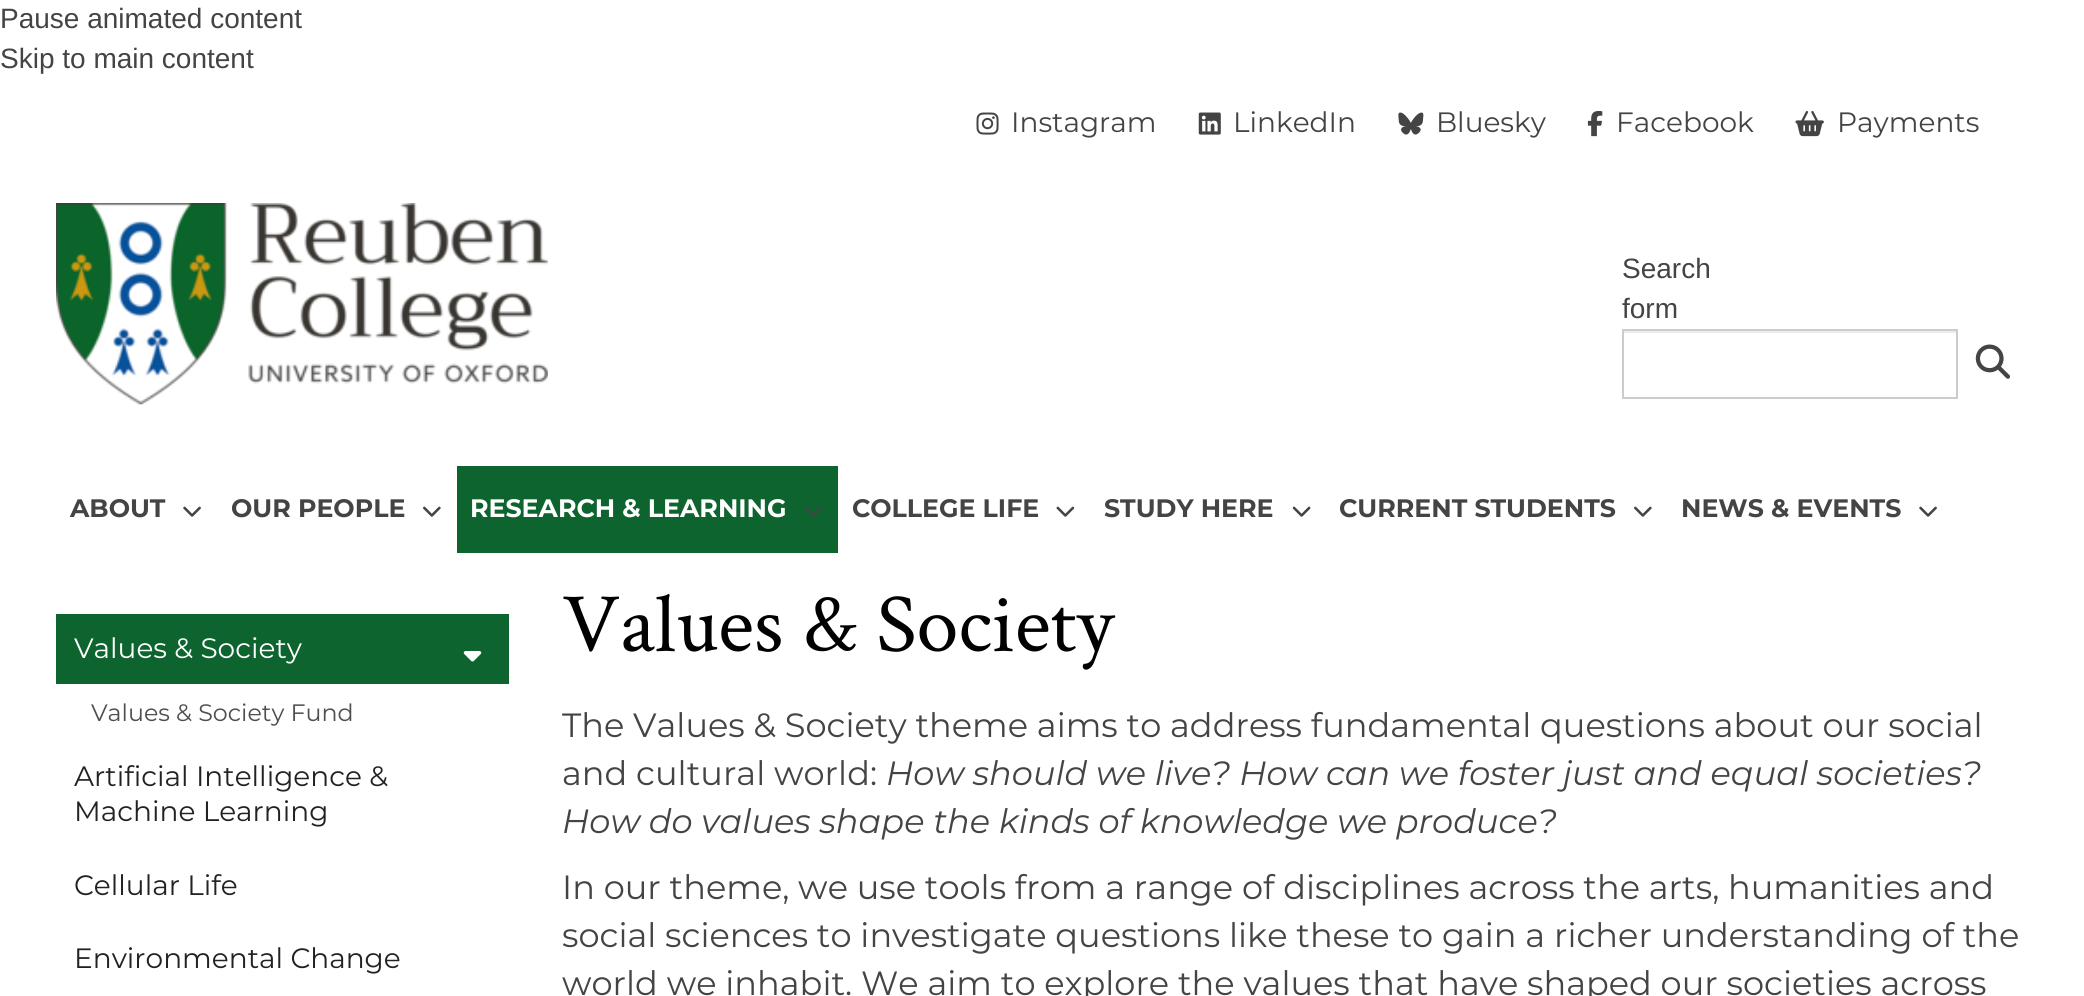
import math
import cairo



def draw_image(context, path, x, y, w, h):
    context.save()
    context.set_source_surface(cairo.ImageSurface.create_from_png(path), x, y)
    context.rectangle(x, y, w, h)
    context.fill()
    context.restore()


def draw(context):
    context.set_source_rgb(1, 1, 1)
    context.paint()
    draw_image(context, "images/1.png", 976, 112, 23, 23)
    draw_image(context, "images/2.png", 1198, 112, 23, 23)
    draw_image(context, "images/3.png", 1398, 112, 26, 23)
    draw_image(context, "images/4.png", 1587, 110, 16, 27)
    draw_image(context, "images/5.png", 1795, 111, 29, 26)
    draw_image(context, "images/6.png", 56, 203, 492, 202)
    context.set_source_rgb(236 / 255, 236 / 255, 236 / 255)
    context.rectangle(1624, 331, 333, 2)
    context.fill()
    context.rectangle(1623, 330, 334, 68)
    context.set_source_rgb(204 / 255, 204 / 255, 204 / 255)
    context.stroke()
    draw_image(context, "images/7.png", 1975, 344, 35, 35)
    draw_image(context, "images/8.png", 183, 506, 18, 11)
    draw_image(context, "images/9.png", 423, 506, 18, 11)
    context.set_source_rgb(13 / 255, 100 / 255, 47 / 255)
    context.rectangle(457, 466, 381, 87)
    context.fill()
    draw_image(context, "images/10.png", 804, 506, 18, 11)
    draw_image(context, "images/11.png", 1056, 506, 19, 11)
    draw_image(context, "images/12.png", 1292, 506, 19, 11)
    draw_image(context, "images/9.png", 1634, 506, 18, 11)
    draw_image(context, "images/8.png", 1919, 506, 18, 11)
    context.rectangle(56, 614, 453, 70)
    context.fill()
    draw_image(context, "images/13.png", 463, 651, 19, 11)
    context.select_font_face("Liberation Sans")
    context.set_font_size(28)
    context.set_source_rgb(68 / 255, 68 / 255, 68 / 255)
    context.move_to(0, 28)
    context.show_text("Pause animated content")
    context.move_to(0, 68)
    context.show_text("Skip to main content")
    context.select_font_face("Montserrat")
    context.move_to(1011, 132)
    context.show_text("Instagram")
    context.move_to(1233, 132)
    context.show_text("LinkedIn")
    context.move_to(1436, 132)
    context.show_text("Bluesky")
    context.move_to(1616, 132)
    context.show_text("Facebook")
    context.move_to(1837, 132)
    context.show_text("Payments")
    context.select_font_face("Liberation Sans")
    context.move_to(1622, 278)
    context.show_text("Search")
    context.move_to(1622, 318)
    context.show_text("form")
    context.select_font_face("Montserrat", cairo.FontSlant.NORMAL, cairo.FontWeight.BOLD)
    context.set_font_size(25.25)
    context.move_to(70, 517)
    context.show_text("ABOUT")
    context.move_to(231, 517)
    context.show_text("OUR PEOPLE")
    context.set_source_rgb(1, 1, 1)
    context.move_to(470, 517)
    context.show_text("RESEARCH & LEARNING")
    context.set_source_rgb(68 / 255, 68 / 255, 68 / 255)
    context.move_to(852, 517)
    context.show_text("COLLEGE LIFE")
    context.move_to(1104, 517)
    context.show_text("STUDY HERE")
    context.move_to(1339, 517)
    context.show_text("CURRENT STUDENTS")
    context.move_to(1681, 517)
    context.show_text("NEWS & EVENTS")
    context.select_font_face("Montserrat")
    context.set_font_size(28)
    context.set_source_rgb(1, 1, 1)
    context.move_to(74, 658)
    context.show_text("Values & Society")
    context.set_font_size(23.75)
    context.set_source_rgb(78 / 255, 78 / 255, 78 / 255)
    context.move_to(91, 721)
    context.show_text("Values & Society Fund")
    context.set_font_size(28)
    context.set_source_rgb(34 / 255, 34 / 255, 34 / 255)
    context.move_to(74, 786)
    context.show_text("Artificial Intelligence &")
    context.move_to(74, 821)
    context.show_text("Machine Learning")
    context.move_to(74, 895)
    context.show_text("Cellular Life")
    context.move_to(74, 968)
    context.show_text("Environmental Change")
    context.select_font_face("Crimson Text")
    context.set_font_size(84.25)
    context.set_source_rgb(0, 0, 0)
    context.move_to(562, 651)
    context.show_text("Values & Society")
    context.select_font_face("Montserrat")
    context.set_font_size(33.6)
    context.set_source_rgb(68 / 255, 68 / 255, 68 / 255)
    context.move_to(562, 737)
    context.show_text("The Values & Society theme aims to address fundamental questions about our social")
    context.move_to(562, 785)
    context.show_text("and cultural world:")
    context.select_font_face("Montserrat", cairo.FontSlant.ITALIC)
    context.move_to(886, 785)
    context.show_text("How should we live? How can we foster just and equal societies?")
    context.move_to(562, 833)
    context.show_text("How do values shape the kinds of knowledge we produce?")
    context.select_font_face("Montserrat")
    context.move_to(562, 899)
    context.show_text("In our theme, we use tools from a range of disciplines across the arts, humanities and")
    context.move_to(562, 947)
    context.show_text("social sciences to investigate questions like these to gain a richer understanding of the")
    context.move_to(562, 995)
    context.show_text("world we inhabit. We aim to explore the values that have shaped our societies across")


surface = cairo.ImageSurface(cairo.Format.RGB24, 2084, 996)
context = cairo.Context(surface)
options = cairo.FontOptions()
options.set_hint_metrics(cairo.HintMetrics.OFF)
options.set_hint_style(cairo.HintStyle.NONE)
context.set_font_options(options)
context.set_miter_limit(4)
draw(context)
surface.write_to_png("out.png")
